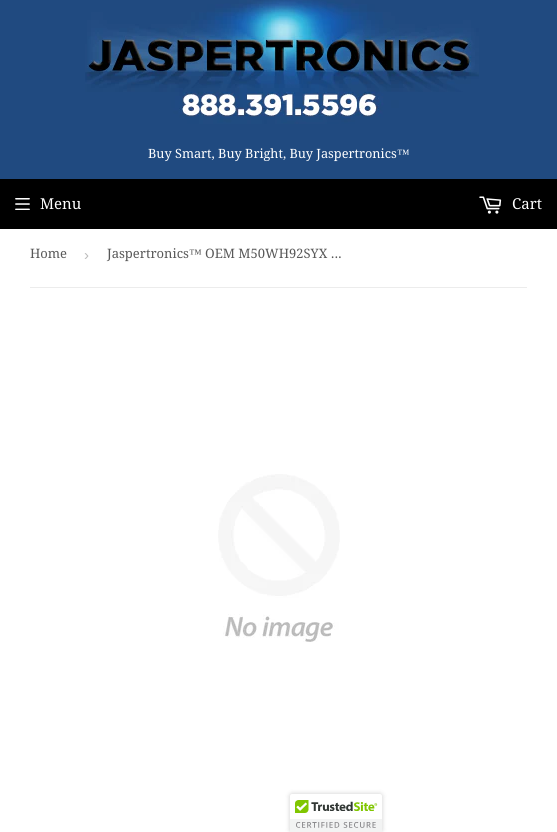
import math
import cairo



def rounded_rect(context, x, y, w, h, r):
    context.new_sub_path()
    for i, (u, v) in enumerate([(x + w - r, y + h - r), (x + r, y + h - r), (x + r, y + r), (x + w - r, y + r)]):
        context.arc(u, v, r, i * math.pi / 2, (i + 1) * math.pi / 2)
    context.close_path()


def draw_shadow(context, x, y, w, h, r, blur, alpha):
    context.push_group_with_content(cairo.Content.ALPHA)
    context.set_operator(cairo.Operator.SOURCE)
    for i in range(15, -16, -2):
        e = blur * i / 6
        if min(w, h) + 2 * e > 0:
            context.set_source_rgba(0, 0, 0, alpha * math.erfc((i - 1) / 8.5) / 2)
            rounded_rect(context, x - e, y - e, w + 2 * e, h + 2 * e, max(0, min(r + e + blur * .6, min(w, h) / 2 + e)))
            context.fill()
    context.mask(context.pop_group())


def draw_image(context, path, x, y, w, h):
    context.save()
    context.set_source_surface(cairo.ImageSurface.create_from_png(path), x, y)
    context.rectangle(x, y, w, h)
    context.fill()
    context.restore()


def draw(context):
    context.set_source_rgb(1, 1, 1)
    context.paint()
    context.set_source_rgb(32 / 255, 74 / 255, 128 / 255)
    context.rectangle(0, 0, 557, 179)
    context.fill()
    draw_image(context, "images/1.png", 85, 0, 394, 124)
    context.set_source_rgb(0, 0, 0)
    context.rectangle(0, 179, 557, 50)
    context.fill()
    draw_image(context, "images/2.png", 15, 198, 15, 12)
    draw_image(context, "images/3.png", 479, 196, 23, 18)
    context.set_source_rgb(236 / 255, 236 / 255, 236 / 255)
    context.rectangle(30, 287, 497, 1)
    context.fill()
    draw_image(context, "images/4.png", 218, 474, 122, 168)
    context.set_source_rgb(0, 0, 0)
    draw_shadow(context, 290, 794, 92, 38, 2, 2.5, 0.2)
    context.set_source_rgb(1, 1, 1)
    context.new_path()
    context.move_to(292, 794)
    context.line_to(380, 794)
    context.curve_to(381, 794, 382, 795, 382, 796)
    context.line_to(382, 832)
    context.line_to(290, 832)
    context.line_to(290, 796)
    context.curve_to(290, 795, 291, 794, 292, 794)
    context.close_path()
    context.fill()
    draw_image(context, "images/5.png", 290, 800, 92, 32)
    context.select_font_face("Droid Serif")
    context.set_font_size(12.75)
    context.move_to(148, 158)
    context.show_text("Buy Smart, Buy Bright, Buy Jaspertronics")
    context.select_font_face("Liberation Serif")
    context.move_to(397, 158)
    context.show_text("™")
    context.select_font_face("Droid Serif")
    context.set_font_size(15)
    context.move_to(40, 209)
    context.show_text("Menu")
    context.move_to(512, 209)
    context.show_text("Cart")
    context.set_font_size(13)
    context.set_source_rgb(88 / 255, 88 / 255, 88 / 255)
    context.move_to(30, 258)
    context.show_text("Home")
    context.select_font_face("Liberation Sans")
    context.set_font_size(15)
    context.set_source_rgb(187 / 255, 187 / 255, 187 / 255)
    context.move_to(84, 260)
    context.show_text("›")
    context.select_font_face("Droid Serif")
    context.set_font_size(13)
    context.set_source_rgb(88 / 255, 88 / 255, 88 / 255)
    context.move_to(107, 258)
    context.show_text("Jaspertronics")
    context.select_font_face("Liberation Serif")
    context.move_to(189, 258)
    context.show_text("™")
    context.select_font_face("Droid Serif")
    context.move_to(205, 258)
    context.show_text("OEM M50WH92SYX ...")


surface = cairo.ImageSurface(cairo.Format.RGB24, 557, 832)
context = cairo.Context(surface)
options = cairo.FontOptions()
options.set_hint_metrics(cairo.HintMetrics.OFF)
options.set_hint_style(cairo.HintStyle.NONE)
context.set_font_options(options)
context.set_miter_limit(4)
draw(context)
surface.write_to_png("out.png")
